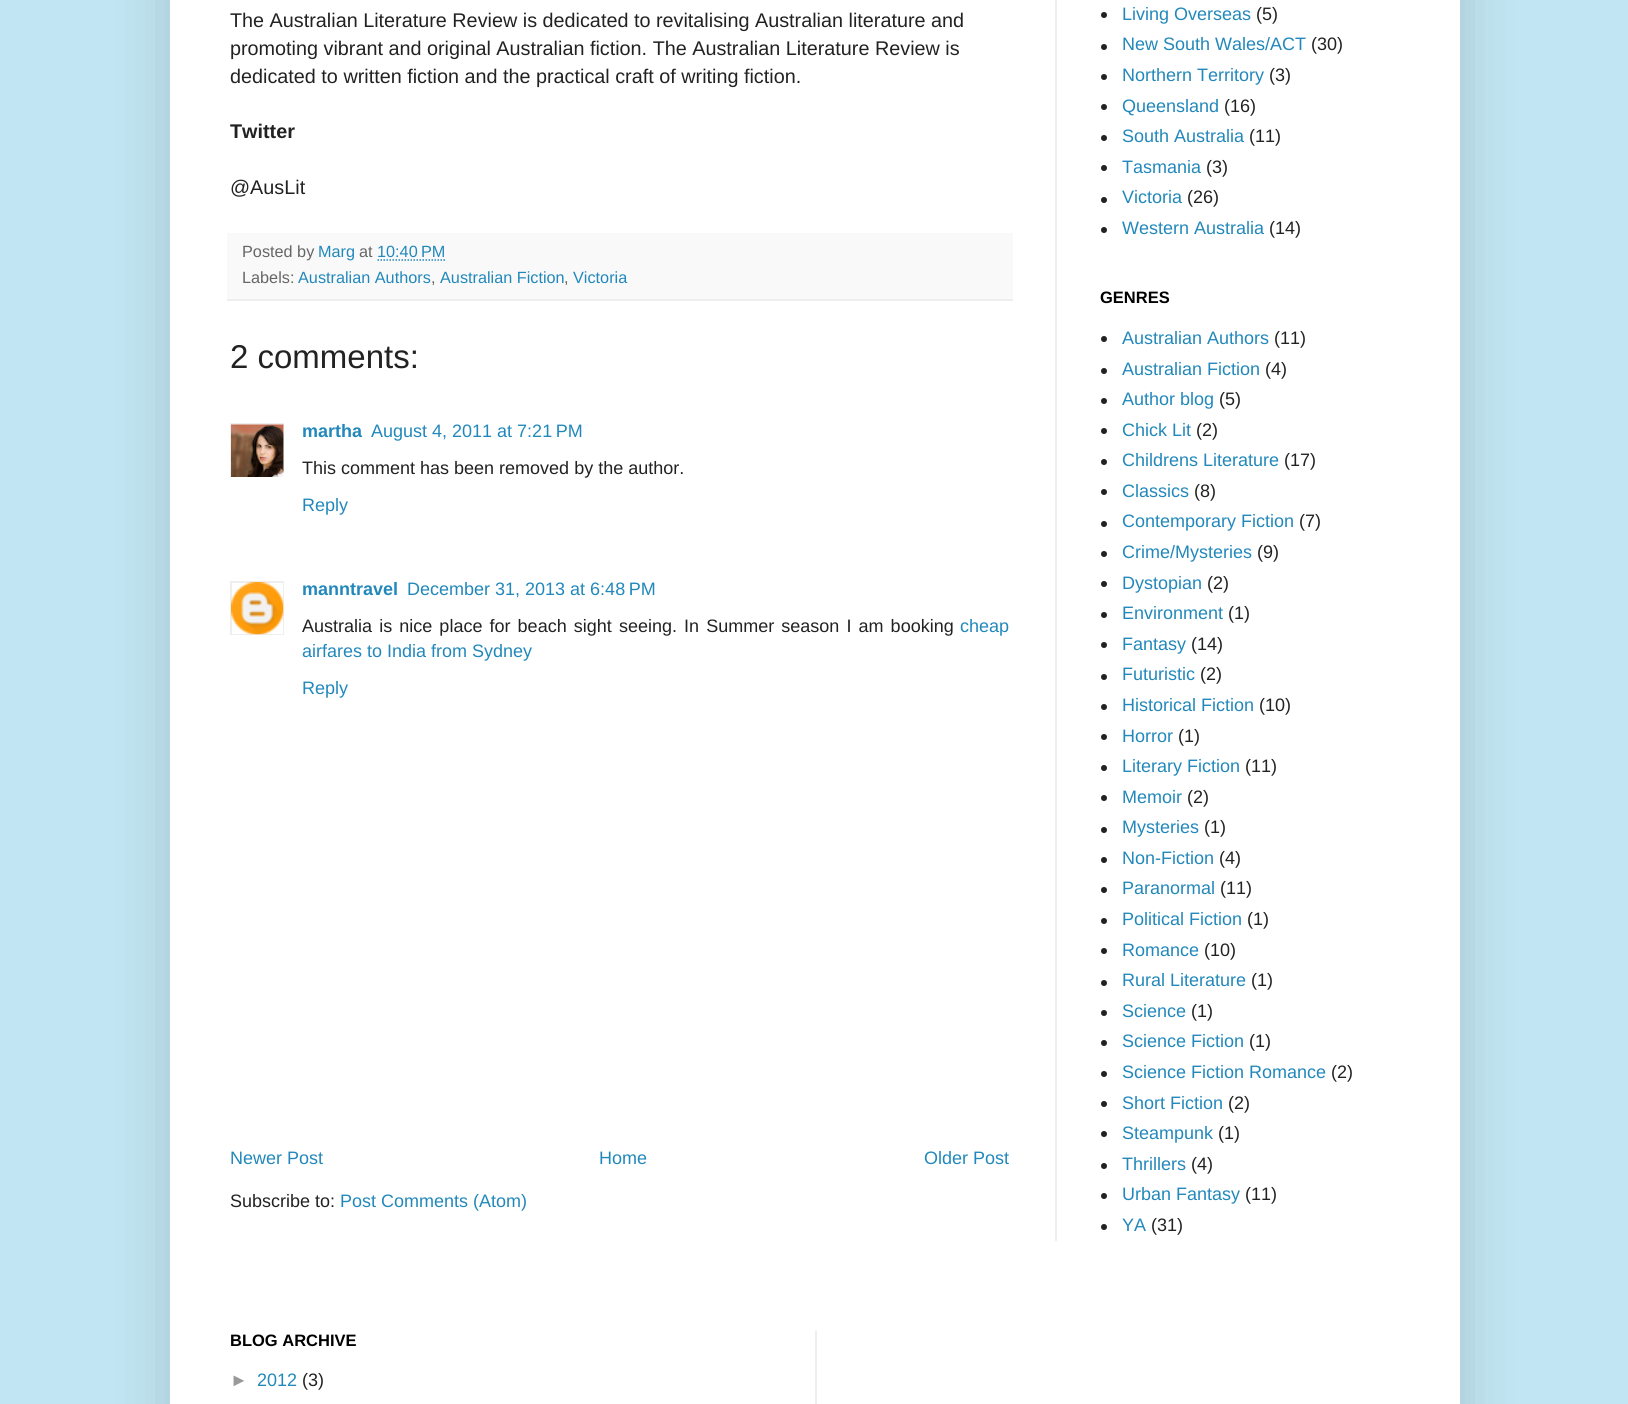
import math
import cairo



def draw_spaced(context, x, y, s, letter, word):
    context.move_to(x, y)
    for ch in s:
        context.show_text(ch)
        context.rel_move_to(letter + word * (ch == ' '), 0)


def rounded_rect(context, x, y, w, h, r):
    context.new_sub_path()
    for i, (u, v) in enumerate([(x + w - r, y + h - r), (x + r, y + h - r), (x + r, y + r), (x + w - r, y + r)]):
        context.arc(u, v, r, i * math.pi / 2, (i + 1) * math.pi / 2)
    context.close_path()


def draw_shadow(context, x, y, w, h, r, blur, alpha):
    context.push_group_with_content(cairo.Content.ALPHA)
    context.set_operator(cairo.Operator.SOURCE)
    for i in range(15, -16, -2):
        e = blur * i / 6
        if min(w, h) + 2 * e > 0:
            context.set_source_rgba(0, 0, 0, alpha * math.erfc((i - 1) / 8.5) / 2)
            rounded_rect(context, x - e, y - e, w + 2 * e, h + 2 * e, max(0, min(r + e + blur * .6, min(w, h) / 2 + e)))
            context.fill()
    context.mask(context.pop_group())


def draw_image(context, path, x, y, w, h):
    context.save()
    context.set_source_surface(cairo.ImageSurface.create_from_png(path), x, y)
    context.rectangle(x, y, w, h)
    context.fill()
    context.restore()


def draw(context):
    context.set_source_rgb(193 / 255, 229 / 255, 242 / 255)
    context.paint()
    context.set_source_rgb(0, 0, 0)
    draw_shadow(context, 170, -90, 1290, 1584, 0, 30, 0.15)
    context.set_source_rgb(1, 1, 1)
    context.rectangle(170, 0, 1290, 1404)
    context.fill()
    context.set_source_rgb(238 / 255, 238 / 255, 238 / 255)
    context.rectangle(1055, 0, 2, 1241)
    context.fill()
    context.set_source_rgb(249 / 255, 249 / 255, 249 / 255)
    context.rectangle(227, 233, 786, 66)
    context.fill()
    context.set_source_rgb(238 / 255, 238 / 255, 238 / 255)
    context.rectangle(227, 299, 786, 2)
    context.fill()
    context.new_path()
    context.move_to(377.5, 260)
    context.line_to(445.5, 260)
    context.set_source_rgb(34 / 255, 136 / 255, 187 / 255)
    context.set_line_width(1.5)
    context.set_dash([1.5, 1.5])
    context.stroke()
    context.save()
    context.rectangle(230, 423, 54, 54)
    context.clip()
    context.rectangle(231, 424, 55, 55)
    context.set_source_rgb(238 / 255, 238 / 255, 238 / 255)
    context.set_line_width(2)
    context.set_dash([])
    context.stroke()
    context.restore()
    draw_image(context, "images/1.png", 231, 424, 53, 53)
    context.save()
    context.rectangle(230, 581, 54, 54)
    context.clip()
    context.rectangle(231, 582, 53, 53)
    context.set_source_rgb(238 / 255, 238 / 255, 238 / 255)
    context.set_line_width(2)
    context.set_dash([])
    context.stroke()
    context.restore()
    draw_image(context, "images/2.png", 231, 582, 53, 53)
    context.set_source_rgb(34 / 255, 34 / 255, 34 / 255)
    context.arc(1104, 15, 3, 0, 2 * math.pi)
    context.fill()
    context.arc(1104, 47, 3, 0, 2 * math.pi)
    context.fill()
    context.arc(1104, 77, 3, 0, 2 * math.pi)
    context.fill()
    context.arc(1104, 107, 3, 0, 2 * math.pi)
    context.fill()
    context.arc(1104, 138, 3, 0, 2 * math.pi)
    context.fill()
    context.arc(1104, 168, 3, 0, 2 * math.pi)
    context.fill()
    context.arc(1104, 200, 3, 0, 2 * math.pi)
    context.fill()
    context.arc(1104, 230, 3, 0, 2 * math.pi)
    context.fill()
    context.arc(1104, 339, 3, 0, 2 * math.pi)
    context.fill()
    context.arc(1104, 371, 3, 0, 2 * math.pi)
    context.fill()
    context.arc(1104, 401, 3, 0, 2 * math.pi)
    context.fill()
    context.arc(1104, 431, 3, 0, 2 * math.pi)
    context.fill()
    context.arc(1104, 462, 3, 0, 2 * math.pi)
    context.fill()
    context.arc(1104, 492, 3, 0, 2 * math.pi)
    context.fill()
    context.arc(1104, 524, 3, 0, 2 * math.pi)
    context.fill()
    context.arc(1104, 554, 3, 0, 2 * math.pi)
    context.fill()
    context.arc(1104, 584, 3, 0, 2 * math.pi)
    context.fill()
    context.arc(1104, 615, 3, 0, 2 * math.pi)
    context.fill()
    context.arc(1104, 645, 3, 0, 2 * math.pi)
    context.fill()
    context.arc(1104, 677, 3, 0, 2 * math.pi)
    context.fill()
    context.arc(1104, 707, 3, 0, 2 * math.pi)
    context.fill()
    context.arc(1104, 737, 3, 0, 2 * math.pi)
    context.fill()
    context.arc(1104, 768, 3, 0, 2 * math.pi)
    context.fill()
    context.arc(1104, 798, 3, 0, 2 * math.pi)
    context.fill()
    context.arc(1104, 830, 3, 0, 2 * math.pi)
    context.fill()
    context.arc(1104, 860, 3, 0, 2 * math.pi)
    context.fill()
    context.arc(1104, 890, 3, 0, 2 * math.pi)
    context.fill()
    context.arc(1104, 921, 3, 0, 2 * math.pi)
    context.fill()
    context.arc(1104, 951, 3, 0, 2 * math.pi)
    context.fill()
    context.arc(1104, 983, 3, 0, 2 * math.pi)
    context.fill()
    context.arc(1104, 1013, 3, 0, 2 * math.pi)
    context.fill()
    context.arc(1104, 1043, 3, 0, 2 * math.pi)
    context.fill()
    context.arc(1104, 1074, 3, 0, 2 * math.pi)
    context.fill()
    context.arc(1104, 1104, 3, 0, 2 * math.pi)
    context.fill()
    context.arc(1104, 1134, 3, 0, 2 * math.pi)
    context.fill()
    context.arc(1104, 1166, 3, 0, 2 * math.pi)
    context.fill()
    context.arc(1104, 1196, 3, 0, 2 * math.pi)
    context.fill()
    context.arc(1104, 1227, 3, 0, 2 * math.pi)
    context.fill()
    context.set_source_rgb(238 / 255, 238 / 255, 238 / 255)
    context.rectangle(815, 1331, 2, 73)
    context.fill()
    context.select_font_face("Liberation Sans")
    context.set_font_size(19.8)
    context.set_source_rgb(34 / 255, 34 / 255, 34 / 255)
    context.move_to(230, 27)
    context.show_text("The Australian Literature Review is dedicated to revitalising Australian literature and")
    context.move_to(230, 55)
    context.show_text("promoting vibrant and original Australian fiction. The Australian Literature Review is")
    context.move_to(230, 83)
    context.show_text("dedicated to written fiction and the practical craft of writing fiction.")
    context.select_font_face("Liberation Sans", cairo.FontSlant.NORMAL, cairo.FontWeight.BOLD)
    context.move_to(230, 138)
    context.show_text("Twitter")
    context.select_font_face("Liberation Sans")
    context.move_to(230, 194)
    context.show_text("@AusLit")
    context.set_font_size(16.25)
    context.set_source_rgb(102 / 255, 102 / 255, 102 / 255)
    context.move_to(242, 257)
    context.show_text("Posted by")
    context.set_source_rgb(34 / 255, 136 / 255, 187 / 255)
    context.move_to(318, 257)
    context.show_text("Marg")
    context.set_source_rgb(102 / 255, 102 / 255, 102 / 255)
    context.move_to(359, 257)
    context.show_text("at")
    context.set_source_rgb(34 / 255, 136 / 255, 187 / 255)
    context.move_to(377, 257)
    context.show_text("10:40 PM")
    context.set_source_rgb(102 / 255, 102 / 255, 102 / 255)
    context.move_to(242, 283)
    context.show_text("Labels:")
    context.set_source_rgb(34 / 255, 136 / 255, 187 / 255)
    context.move_to(298, 283)
    context.show_text("Australian Authors")
    context.set_source_rgb(102 / 255, 102 / 255, 102 / 255)
    context.move_to(431, 283)
    context.show_text(",")
    context.set_source_rgb(34 / 255, 136 / 255, 187 / 255)
    context.move_to(440, 283)
    context.show_text("Australian Fiction")
    context.set_source_rgb(102 / 255, 102 / 255, 102 / 255)
    context.move_to(564, 283)
    context.show_text(",")
    context.set_source_rgb(34 / 255, 136 / 255, 187 / 255)
    context.move_to(573, 283)
    context.show_text("Victoria")
    context.set_font_size(33)
    context.set_source_rgb(34 / 255, 34 / 255, 34 / 255)
    context.move_to(230, 368)
    context.show_text("2 comments:")
    context.select_font_face("Liberation Sans", cairo.FontSlant.NORMAL, cairo.FontWeight.BOLD)
    context.set_font_size(18)
    context.set_source_rgb(34 / 255, 136 / 255, 187 / 255)
    context.move_to(302, 437)
    context.show_text("martha")
    context.select_font_face("Liberation Sans")
    context.move_to(371, 437)
    context.show_text("August 4, 2011 at 7:21 PM")
    context.set_source_rgb(34 / 255, 34 / 255, 34 / 255)
    context.move_to(302, 474)
    context.show_text("This comment has been removed by the author.")
    context.set_source_rgb(34 / 255, 136 / 255, 187 / 255)
    context.move_to(302, 511)
    context.show_text("Reply")
    context.select_font_face("Liberation Sans", cairo.FontSlant.NORMAL, cairo.FontWeight.BOLD)
    context.move_to(302, 595)
    context.show_text("manntravel")
    context.select_font_face("Liberation Sans")
    context.move_to(407, 595)
    context.show_text("December 31, 2013 at 6:48 PM")
    context.set_source_rgb(34 / 255, 34 / 255, 34 / 255)
    draw_spaced(context, 302, 632, "Australia is nice place for beach sight seeing. In Summer season I am booking", 0, 2.1)
    context.set_source_rgb(34 / 255, 136 / 255, 187 / 255)
    context.move_to(960, 632)
    context.show_text("cheap")
    context.move_to(302, 657)
    context.show_text("airfares to India from Sydney")
    context.move_to(302, 694)
    context.show_text("Reply")
    context.move_to(230, 1164)
    context.show_text("Newer Post")
    context.move_to(599, 1164)
    context.show_text("Home")
    context.move_to(924, 1164)
    context.show_text("Older Post")
    context.set_source_rgb(34 / 255, 34 / 255, 34 / 255)
    context.move_to(230, 1207)
    context.show_text("Subscribe to:")
    context.set_source_rgb(34 / 255, 136 / 255, 187 / 255)
    context.move_to(340, 1207)
    context.show_text("Post Comments (Atom)")
    context.move_to(1122, 20)
    context.show_text("Living Overseas")
    context.set_source_rgb(34 / 255, 34 / 255, 34 / 255)
    context.move_to(1256, 20)
    context.show_text("(5)")
    context.set_source_rgb(34 / 255, 136 / 255, 187 / 255)
    context.move_to(1122, 50)
    context.show_text("New South Wales/ACT")
    context.set_source_rgb(34 / 255, 34 / 255, 34 / 255)
    context.move_to(1311, 50)
    context.show_text("(30)")
    context.set_source_rgb(34 / 255, 136 / 255, 187 / 255)
    context.move_to(1122, 81)
    context.show_text("Northern Territory")
    context.set_source_rgb(34 / 255, 34 / 255, 34 / 255)
    context.move_to(1269, 81)
    context.show_text("(3)")
    context.set_source_rgb(34 / 255, 136 / 255, 187 / 255)
    context.move_to(1122, 112)
    context.show_text("Queensland")
    context.set_source_rgb(34 / 255, 34 / 255, 34 / 255)
    context.move_to(1224, 112)
    context.show_text("(16)")
    context.set_source_rgb(34 / 255, 136 / 255, 187 / 255)
    context.move_to(1122, 142)
    context.show_text("South Australia")
    context.set_source_rgb(34 / 255, 34 / 255, 34 / 255)
    context.move_to(1249, 142)
    context.show_text("(11)")
    context.set_source_rgb(34 / 255, 136 / 255, 187 / 255)
    context.move_to(1122, 173)
    context.show_text("Tasmania")
    context.set_source_rgb(34 / 255, 34 / 255, 34 / 255)
    context.move_to(1206, 173)
    context.show_text("(3)")
    context.set_source_rgb(34 / 255, 136 / 255, 187 / 255)
    context.move_to(1122, 203)
    context.show_text("Victoria")
    context.set_source_rgb(34 / 255, 34 / 255, 34 / 255)
    context.move_to(1187, 203)
    context.show_text("(26)")
    context.set_source_rgb(34 / 255, 136 / 255, 187 / 255)
    context.move_to(1122, 234)
    context.show_text("Western Australia")
    context.set_source_rgb(34 / 255, 34 / 255, 34 / 255)
    context.move_to(1269, 234)
    context.show_text("(14)")
    context.select_font_face("Liberation Sans", cairo.FontSlant.NORMAL, cairo.FontWeight.BOLD)
    context.set_font_size(16.5)
    context.set_source_rgb(0, 0, 0)
    context.move_to(1100, 303)
    context.show_text("GENRES")
    context.select_font_face("Liberation Sans")
    context.set_font_size(18)
    context.set_source_rgb(34 / 255, 136 / 255, 187 / 255)
    context.move_to(1122, 344)
    context.show_text("Australian Authors")
    context.set_source_rgb(34 / 255, 34 / 255, 34 / 255)
    context.move_to(1274, 344)
    context.show_text("(11)")
    context.set_source_rgb(34 / 255, 136 / 255, 187 / 255)
    context.move_to(1122, 375)
    context.show_text("Australian Fiction")
    context.set_source_rgb(34 / 255, 34 / 255, 34 / 255)
    context.move_to(1265, 375)
    context.show_text("(4)")
    context.set_source_rgb(34 / 255, 136 / 255, 187 / 255)
    context.move_to(1122, 405)
    context.show_text("Author blog")
    context.set_source_rgb(34 / 255, 34 / 255, 34 / 255)
    context.move_to(1219, 405)
    context.show_text("(5)")
    context.set_source_rgb(34 / 255, 136 / 255, 187 / 255)
    context.move_to(1122, 436)
    context.show_text("Chick Lit")
    context.set_source_rgb(34 / 255, 34 / 255, 34 / 255)
    context.move_to(1196, 436)
    context.show_text("(2)")
    context.set_source_rgb(34 / 255, 136 / 255, 187 / 255)
    context.move_to(1122, 466)
    context.show_text("Childrens Literature")
    context.set_source_rgb(34 / 255, 34 / 255, 34 / 255)
    context.move_to(1284, 466)
    context.show_text("(17)")
    context.set_source_rgb(34 / 255, 136 / 255, 187 / 255)
    context.move_to(1122, 497)
    context.show_text("Classics")
    context.set_source_rgb(34 / 255, 34 / 255, 34 / 255)
    context.move_to(1194, 497)
    context.show_text("(8)")
    context.set_source_rgb(34 / 255, 136 / 255, 187 / 255)
    context.move_to(1122, 527)
    context.show_text("Contemporary Fiction")
    context.set_source_rgb(34 / 255, 34 / 255, 34 / 255)
    context.move_to(1299, 527)
    context.show_text("(7)")
    context.set_source_rgb(34 / 255, 136 / 255, 187 / 255)
    context.move_to(1122, 558)
    context.show_text("Crime/Mysteries")
    context.set_source_rgb(34 / 255, 34 / 255, 34 / 255)
    context.move_to(1257, 558)
    context.show_text("(9)")
    context.set_source_rgb(34 / 255, 136 / 255, 187 / 255)
    context.move_to(1122, 589)
    context.show_text("Dystopian")
    context.set_source_rgb(34 / 255, 34 / 255, 34 / 255)
    context.move_to(1207, 589)
    context.show_text("(2)")
    context.set_source_rgb(34 / 255, 136 / 255, 187 / 255)
    context.move_to(1122, 619)
    context.show_text("Environment")
    context.set_source_rgb(34 / 255, 34 / 255, 34 / 255)
    context.move_to(1228, 619)
    context.show_text("(1)")
    context.set_source_rgb(34 / 255, 136 / 255, 187 / 255)
    context.move_to(1122, 650)
    context.show_text("Fantasy")
    context.set_source_rgb(34 / 255, 34 / 255, 34 / 255)
    context.move_to(1191, 650)
    context.show_text("(14)")
    context.set_source_rgb(34 / 255, 136 / 255, 187 / 255)
    context.move_to(1122, 680)
    context.show_text("Futuristic")
    context.set_source_rgb(34 / 255, 34 / 255, 34 / 255)
    context.move_to(1200, 680)
    context.show_text("(2)")
    context.set_source_rgb(34 / 255, 136 / 255, 187 / 255)
    context.move_to(1122, 711)
    context.show_text("Historical Fiction")
    context.set_source_rgb(34 / 255, 34 / 255, 34 / 255)
    context.move_to(1259, 711)
    context.show_text("(10)")
    context.set_source_rgb(34 / 255, 136 / 255, 187 / 255)
    context.move_to(1122, 742)
    context.show_text("Horror")
    context.set_source_rgb(34 / 255, 34 / 255, 34 / 255)
    context.move_to(1178, 742)
    context.show_text("(1)")
    context.set_source_rgb(34 / 255, 136 / 255, 187 / 255)
    context.move_to(1122, 772)
    context.show_text("Literary Fiction")
    context.set_source_rgb(34 / 255, 34 / 255, 34 / 255)
    context.move_to(1245, 772)
    context.show_text("(11)")
    context.set_source_rgb(34 / 255, 136 / 255, 187 / 255)
    context.move_to(1122, 803)
    context.show_text("Memoir")
    context.set_source_rgb(34 / 255, 34 / 255, 34 / 255)
    context.move_to(1187, 803)
    context.show_text("(2)")
    context.set_source_rgb(34 / 255, 136 / 255, 187 / 255)
    context.move_to(1122, 833)
    context.show_text("Mysteries")
    context.set_source_rgb(34 / 255, 34 / 255, 34 / 255)
    context.move_to(1204, 833)
    context.show_text("(1)")
    context.set_source_rgb(34 / 255, 136 / 255, 187 / 255)
    context.move_to(1122, 864)
    context.show_text("Non-Fiction")
    context.set_source_rgb(34 / 255, 34 / 255, 34 / 255)
    context.move_to(1219, 864)
    context.show_text("(4)")
    context.set_source_rgb(34 / 255, 136 / 255, 187 / 255)
    context.move_to(1122, 894)
    context.show_text("Paranormal")
    context.set_source_rgb(34 / 255, 34 / 255, 34 / 255)
    context.move_to(1220, 894)
    context.show_text("(11)")
    context.set_source_rgb(34 / 255, 136 / 255, 187 / 255)
    context.move_to(1122, 925)
    context.show_text("Political Fiction")
    context.set_source_rgb(34 / 255, 34 / 255, 34 / 255)
    context.move_to(1247, 925)
    context.show_text("(1)")
    context.set_source_rgb(34 / 255, 136 / 255, 187 / 255)
    context.move_to(1122, 956)
    context.show_text("Romance")
    context.set_source_rgb(34 / 255, 34 / 255, 34 / 255)
    context.move_to(1204, 956)
    context.show_text("(10)")
    context.set_source_rgb(34 / 255, 136 / 255, 187 / 255)
    context.move_to(1122, 986)
    context.show_text("Rural Literature")
    context.set_source_rgb(34 / 255, 34 / 255, 34 / 255)
    context.move_to(1251, 986)
    context.show_text("(1)")
    context.set_source_rgb(34 / 255, 136 / 255, 187 / 255)
    context.move_to(1122, 1017)
    context.show_text("Science")
    context.set_source_rgb(34 / 255, 34 / 255, 34 / 255)
    context.move_to(1191, 1017)
    context.show_text("(1)")
    context.set_source_rgb(34 / 255, 136 / 255, 187 / 255)
    context.move_to(1122, 1047)
    context.show_text("Science Fiction")
    context.set_source_rgb(34 / 255, 34 / 255, 34 / 255)
    context.move_to(1249, 1047)
    context.show_text("(1)")
    context.set_source_rgb(34 / 255, 136 / 255, 187 / 255)
    context.move_to(1122, 1078)
    context.show_text("Science Fiction Romance")
    context.set_source_rgb(34 / 255, 34 / 255, 34 / 255)
    context.move_to(1331, 1078)
    context.show_text("(2)")
    context.set_source_rgb(34 / 255, 136 / 255, 187 / 255)
    context.move_to(1122, 1109)
    context.show_text("Short Fiction")
    context.set_source_rgb(34 / 255, 34 / 255, 34 / 255)
    context.move_to(1228, 1109)
    context.show_text("(2)")
    context.set_source_rgb(34 / 255, 136 / 255, 187 / 255)
    context.move_to(1122, 1139)
    context.show_text("Steampunk")
    context.set_source_rgb(34 / 255, 34 / 255, 34 / 255)
    context.move_to(1218, 1139)
    context.show_text("(1)")
    context.set_source_rgb(34 / 255, 136 / 255, 187 / 255)
    context.move_to(1122, 1170)
    context.show_text("Thrillers")
    context.set_source_rgb(34 / 255, 34 / 255, 34 / 255)
    context.move_to(1191, 1170)
    context.show_text("(4)")
    context.set_source_rgb(34 / 255, 136 / 255, 187 / 255)
    context.move_to(1122, 1200)
    context.show_text("Urban Fantasy")
    context.set_source_rgb(34 / 255, 34 / 255, 34 / 255)
    context.move_to(1245, 1200)
    context.show_text("(11)")
    context.set_source_rgb(34 / 255, 136 / 255, 187 / 255)
    context.move_to(1122, 1231)
    context.show_text("YA")
    context.set_source_rgb(34 / 255, 34 / 255, 34 / 255)
    context.move_to(1151, 1231)
    context.show_text("(31)")
    context.select_font_face("Liberation Sans", cairo.FontSlant.NORMAL, cairo.FontWeight.BOLD)
    context.set_font_size(16.5)
    context.set_source_rgb(0, 0, 0)
    context.move_to(230, 1346)
    context.show_text("BLOG ARCHIVE")
    context.select_font_face("Liberation Sans")
    context.set_font_size(18)
    context.set_source_rgb(153 / 255, 153 / 255, 153 / 255)
    context.move_to(230, 1386)
    context.show_text("►")
    context.set_source_rgb(34 / 255, 136 / 255, 187 / 255)
    context.move_to(257, 1386)
    context.show_text("2012")
    context.set_source_rgb(34 / 255, 34 / 255, 34 / 255)
    context.move_to(302, 1386)
    context.show_text("(3)")


surface = cairo.ImageSurface(cairo.Format.RGB24, 1628, 1404)
context = cairo.Context(surface)
options = cairo.FontOptions()
options.set_hint_metrics(cairo.HintMetrics.OFF)
options.set_hint_style(cairo.HintStyle.NONE)
context.set_font_options(options)
context.set_miter_limit(4)
draw(context)
surface.write_to_png("out.png")
